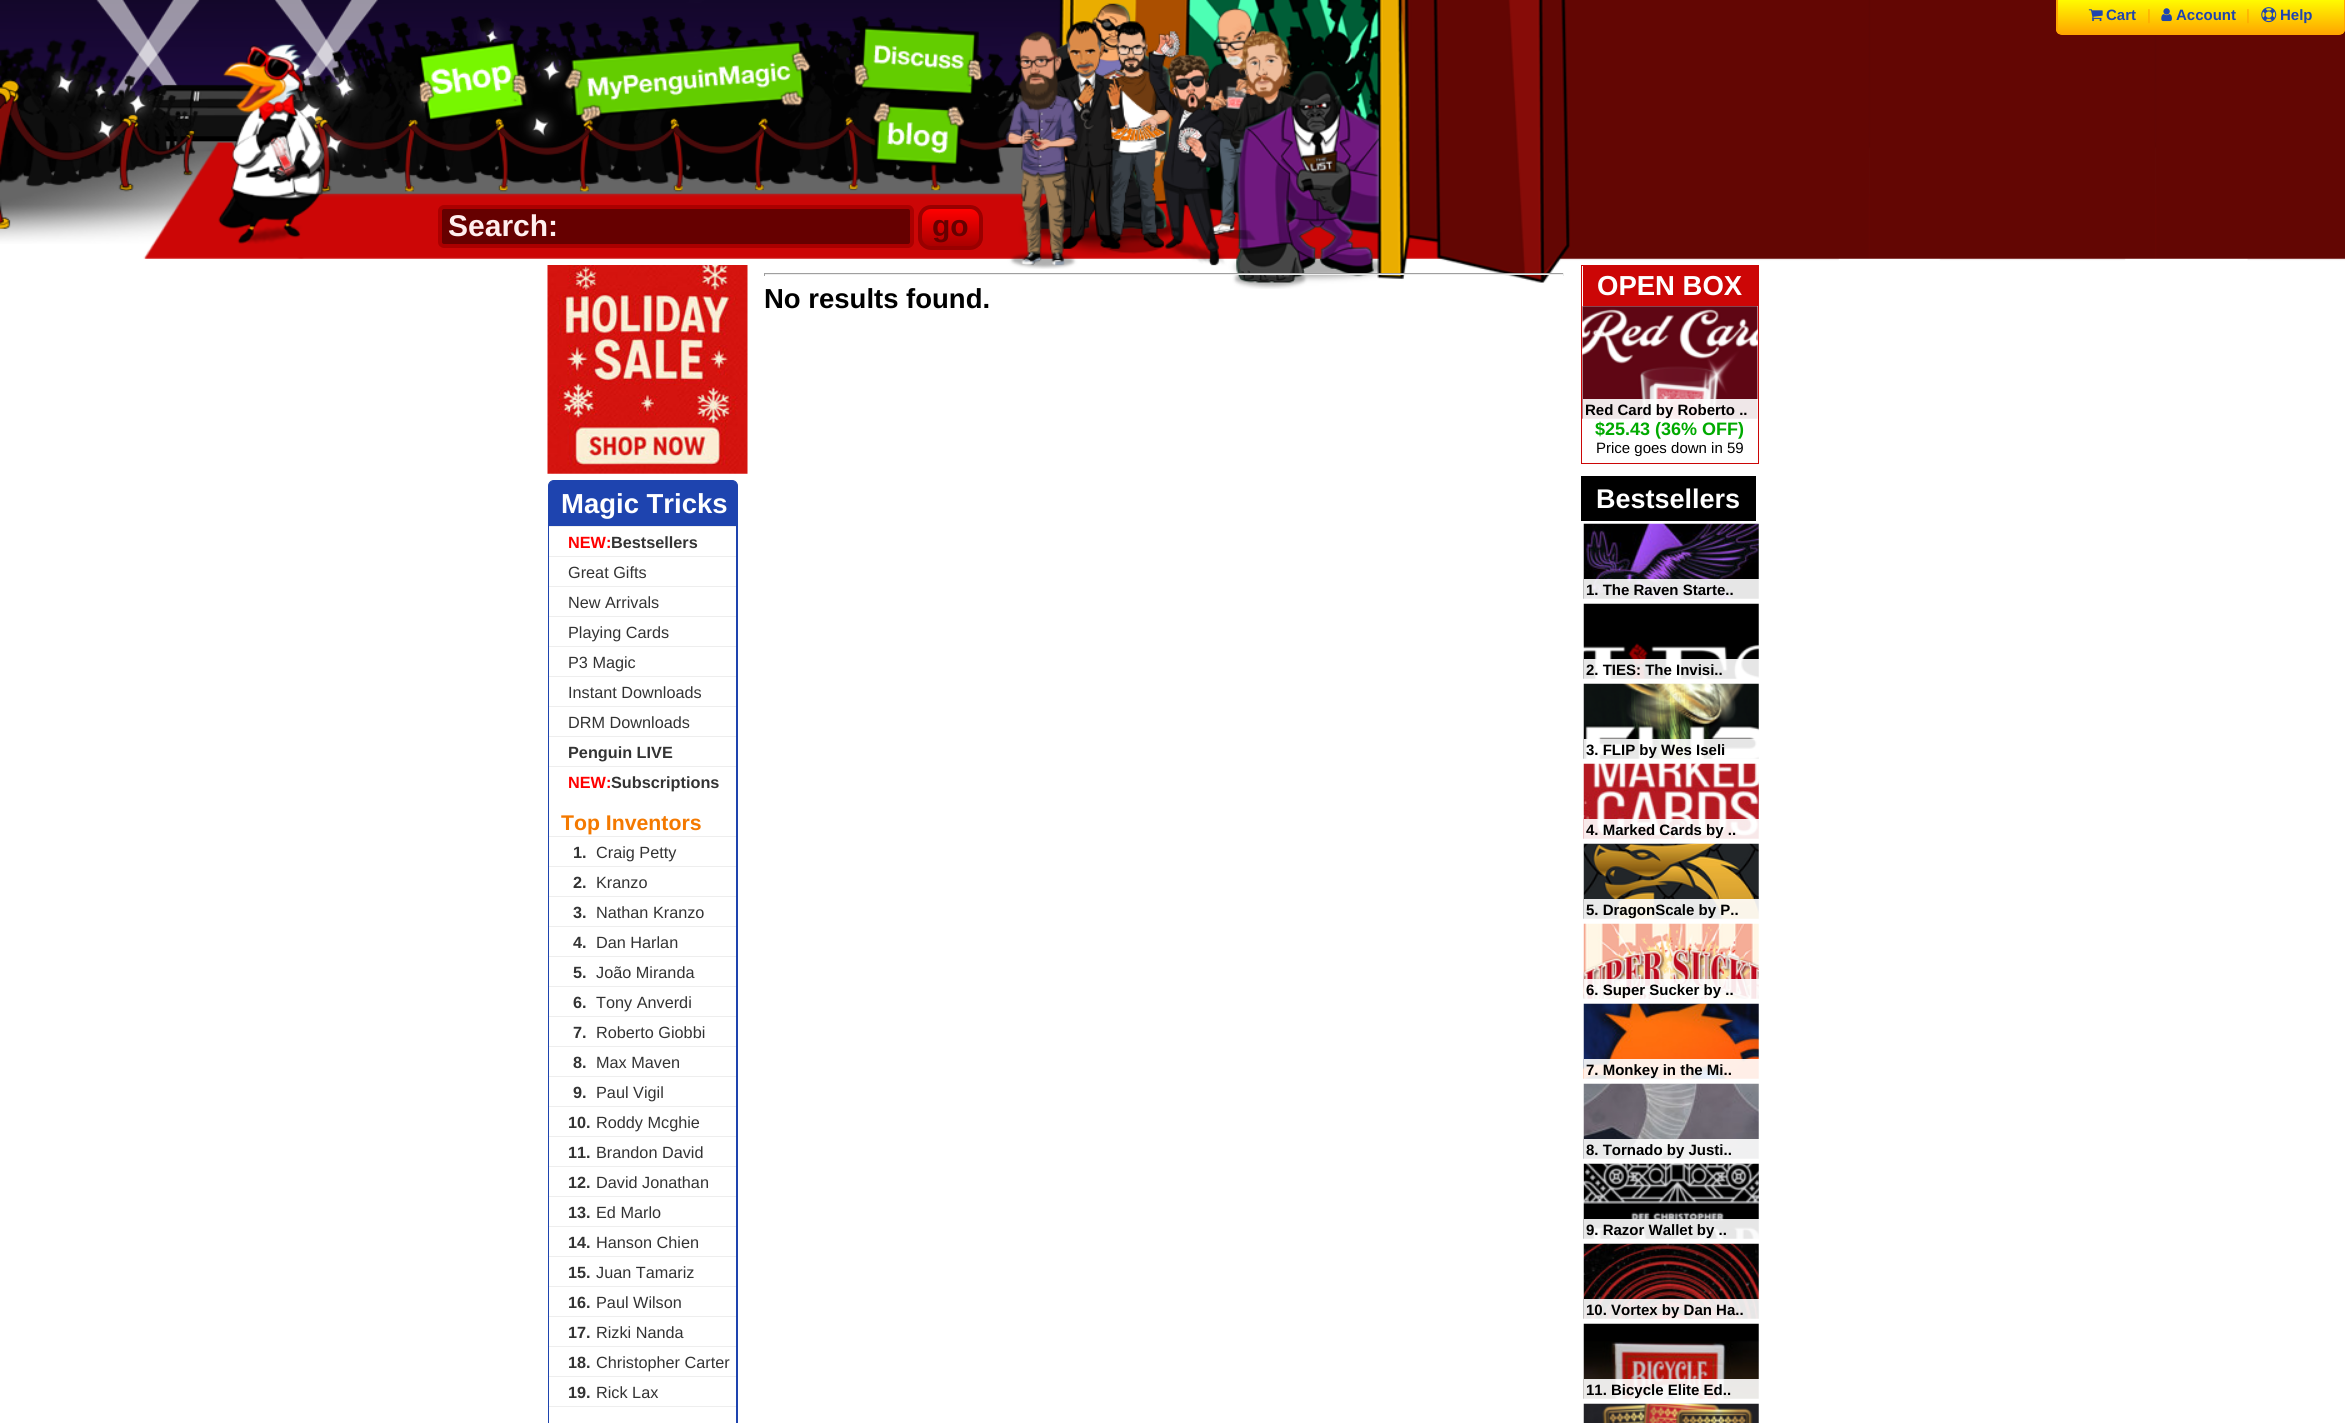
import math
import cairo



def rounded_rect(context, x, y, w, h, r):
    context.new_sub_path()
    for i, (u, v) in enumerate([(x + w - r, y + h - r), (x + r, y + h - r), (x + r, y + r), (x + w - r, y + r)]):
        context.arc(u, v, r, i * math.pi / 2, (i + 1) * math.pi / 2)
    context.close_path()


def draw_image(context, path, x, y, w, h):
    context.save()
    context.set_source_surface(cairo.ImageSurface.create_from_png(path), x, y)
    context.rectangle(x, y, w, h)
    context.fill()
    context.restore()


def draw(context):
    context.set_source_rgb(1, 1, 1)
    context.paint()
    draw_image(context, "images/1.png", 0, 0, 2345, 289)
    context.save()
    context.new_path()
    context.move_to(2056, 0)
    context.line_to(2345, 0)
    context.line_to(2345, 29)
    context.curve_to(2345, 32.5, 2342.5, 35, 2339, 35)
    context.line_to(2062, 35)
    context.curve_to(2058.5, 35, 2056, 32.5, 2056, 29)
    context.close_path()
    context.clip()
    gradient = cairo.LinearGradient(2058, 0, 2058, 34)
    gradient.add_color_stop_rgba(0, 1, 251 / 255, 0, 1)
    gradient.add_color_stop_rgba(1, 1, 166 / 255, 0, 1)
    context.set_source(gradient)
    context.rectangle(2056, 0, 289, 34)
    context.fill()
    context.restore()
    context.set_source_rgb(1, 165 / 255, 0)
    context.set_fill_rule(cairo.FillRule.EVEN_ODD)
    context.new_path()
    context.move_to(2056, 0)
    context.line_to(2345, 0)
    context.line_to(2345, 29)
    context.curve_to(2345, 32, 2342, 35, 2339, 35)
    context.line_to(2062, 35)
    context.curve_to(2059, 35, 2056, 32, 2056, 29)
    context.close_path()
    context.move_to(2058, 0)
    context.line_to(2344, 0)
    context.line_to(2344, 29)
    context.curve_to(2344, 32, 2342, 34, 2339, 34)
    context.line_to(2062, 34)
    context.curve_to(2060, 34, 2058, 32, 2058, 29)
    context.close_path()
    context.fill()
    draw_image(context, "images/2.png", 2088, 9, 15, 13)
    draw_image(context, "images/3.png", 2161, 8, 11, 14)
    draw_image(context, "images/4.png", 2261, 7, 16, 16)
    draw_image(context, "images/5.png", 218, 43, 107, 201)
    draw_image(context, "images/6.png", 418, 39, 110, 84)
    draw_image(context, "images/7.png", 564, 41, 247, 82)
    draw_image(context, "images/8.png", 853, 25, 130, 70)
    draw_image(context, "images/9.png", 872, 102, 93, 65)
    context.set_source_rgb(102 / 255, 0, 0)
    rounded_rect(context, 440, 207, 472, 39, 4)
    context.fill_preserve()
    context.set_source_rgb(170 / 255, 0, 0)
    context.set_line_width(4)
    context.stroke()
    context.save()
    context.set_fill_rule(cairo.FillRule.WINDING)
    rounded_rect(context, 918, 205, 65, 45, 13)
    context.clip()
    gradient = cairo.LinearGradient(921, 209, 921, 246)
    gradient.add_color_stop_rgba(0, 1, 0, 0, 1)
    gradient.add_color_stop_rgba(1, 170 / 255, 0, 0, 1)
    context.set_source(gradient)
    context.rectangle(918, 209, 65, 37)
    context.fill()
    context.restore()
    rounded_rect(context, 920, 207, 61, 41, 11)
    context.set_source_rgb(153 / 255, 0, 0)
    context.stroke()
    context.set_source_rgb(159 / 255, 159 / 255, 159 / 255)
    context.rectangle(764, 273, 800, 1)
    context.fill()
    context.set_source_rgb(238 / 255, 238 / 255, 238 / 255)
    context.rectangle(1563, 273, 1, 3)
    context.fill()
    context.rectangle(764, 274, 800, 1)
    context.fill()
    context.set_source_rgb(159 / 255, 159 / 255, 159 / 255)
    context.rectangle(764, 273, 1, 3)
    context.fill()
    context.rectangle(1581.5, 265.5, 177, 198)
    context.set_source_rgb(204 / 255, 6 / 255, 6 / 255)
    context.set_line_width(1)
    context.stroke()
    context.rectangle(1583, 266, 175, 40)
    context.fill()
    draw_image(context, "images/10.png", 1582, 306, 176, 113)
    context.set_source_rgba(1, 1, 1, 0.9)
    context.rectangle(1583, 399, 175, 20)
    context.fill()
    context.set_source_rgb(0, 0, 0)
    context.rectangle(1581, 476, 175, 45)
    context.fill()
    draw_image(context, "images/11.png", 1583, 523, 176, 76)
    context.set_source_rgba(1, 1, 1, 0.9)
    context.rectangle(1584, 579, 175, 20)
    context.fill()
    draw_image(context, "images/12.png", 1583, 603, 176, 76)
    context.rectangle(1584, 659, 175, 20)
    context.fill()
    draw_image(context, "images/13.png", 1583, 683, 176, 76)
    context.rectangle(1584, 739, 175, 20)
    context.fill()
    draw_image(context, "images/14.png", 1583, 763, 176, 76)
    context.rectangle(1584, 819, 175, 20)
    context.fill()
    draw_image(context, "images/15.png", 1583, 843, 176, 76)
    context.rectangle(1584, 899, 175, 20)
    context.fill()
    draw_image(context, "images/16.png", 1583, 923, 176, 76)
    context.rectangle(1584, 979, 175, 20)
    context.fill()
    draw_image(context, "images/17.png", 1583, 1003, 176, 76)
    context.rectangle(1584, 1059, 175, 20)
    context.fill()
    draw_image(context, "images/18.png", 1583, 1083, 176, 76)
    context.rectangle(1584, 1139, 175, 20)
    context.fill()
    draw_image(context, "images/19.png", 1583, 1163, 176, 76)
    context.rectangle(1584, 1219, 175, 20)
    context.fill()
    draw_image(context, "images/20.png", 1583, 1243, 176, 76)
    context.rectangle(1584, 1299, 175, 20)
    context.fill()
    draw_image(context, "images/21.png", 1583, 1323, 176, 76)
    context.rectangle(1584, 1379, 175, 20)
    context.fill()
    draw_image(context, "images/22.png", 1583, 1403, 176, 20)
    draw_image(context, "images/23.png", 547, 265, 201, 209)
    context.set_source_rgb(30 / 255, 68 / 255, 175 / 255)
    rounded_rect(context, 548.5, 480.5, 189, 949, 5.5)
    context.fill_preserve()
    context.stroke()
    context.set_source_rgb(1, 1, 1)
    context.rectangle(549, 527, 187, 896)
    context.fill()
    context.set_source_rgb(238 / 255, 238 / 255, 238 / 255)
    context.rectangle(549, 526, 187, 1)
    context.fill()
    context.rectangle(549, 556, 187, 1)
    context.fill()
    context.rectangle(549, 586, 187, 1)
    context.fill()
    context.rectangle(549, 616, 187, 1)
    context.fill()
    context.rectangle(549, 646, 187, 1)
    context.fill()
    context.rectangle(549, 676, 187, 1)
    context.fill()
    context.rectangle(549, 706, 187, 1)
    context.fill()
    context.rectangle(549, 736, 187, 1)
    context.fill()
    context.rectangle(549, 766, 187, 1)
    context.fill()
    context.rectangle(549, 836, 187, 1)
    context.fill()
    context.rectangle(549, 866, 187, 1)
    context.fill()
    context.rectangle(549, 896, 187, 1)
    context.fill()
    context.rectangle(549, 926, 187, 1)
    context.fill()
    context.rectangle(549, 956, 187, 1)
    context.fill()
    context.rectangle(549, 986, 187, 1)
    context.fill()
    context.rectangle(549, 1016, 187, 1)
    context.fill()
    context.rectangle(549, 1046, 187, 1)
    context.fill()
    context.rectangle(549, 1076, 187, 1)
    context.fill()
    context.rectangle(549, 1106, 187, 1)
    context.fill()
    context.rectangle(549, 1136, 187, 1)
    context.fill()
    context.rectangle(549, 1166, 187, 1)
    context.fill()
    context.rectangle(549, 1196, 187, 1)
    context.fill()
    context.rectangle(549, 1226, 187, 1)
    context.fill()
    context.rectangle(549, 1256, 187, 1)
    context.fill()
    context.rectangle(549, 1286, 187, 1)
    context.fill()
    context.rectangle(549, 1316, 187, 1)
    context.fill()
    context.rectangle(549, 1346, 187, 1)
    context.fill()
    context.rectangle(549, 1376, 187, 1)
    context.fill()
    context.rectangle(549, 1406, 187, 1)
    context.fill()
    context.select_font_face("Liberation Sans", cairo.FontSlant.NORMAL, cairo.FontWeight.BOLD)
    context.set_font_size(15)
    context.set_source_rgb(30 / 255, 68 / 255, 175 / 255)
    context.move_to(2106, 20)
    context.show_text("Cart")
    context.select_font_face("Liberation Sans")
    context.set_source_rgb(1, 165 / 255, 0)
    context.move_to(2147, 20)
    context.show_text("|")
    context.select_font_face("Liberation Sans", cairo.FontSlant.NORMAL, cairo.FontWeight.BOLD)
    context.set_source_rgb(30 / 255, 68 / 255, 175 / 255)
    context.move_to(2176, 20)
    context.show_text("Account")
    context.select_font_face("Liberation Sans")
    context.set_source_rgb(1, 165 / 255, 0)
    context.move_to(2246, 20)
    context.show_text("|")
    context.select_font_face("Liberation Sans", cairo.FontSlant.NORMAL, cairo.FontWeight.BOLD)
    context.set_source_rgb(30 / 255, 68 / 255, 175 / 255)
    context.move_to(2280, 20)
    context.show_text("Help")
    context.set_font_size(30)
    context.set_source_rgb(1, 238 / 255, 238 / 255)
    context.move_to(448, 236)
    context.show_text("Search:")
    context.set_source_rgb(102 / 255, 0, 0)
    context.move_to(932, 236)
    context.show_text("go")
    context.set_font_size(27.5)
    context.set_source_rgb(0, 0, 0)
    context.move_to(764, 308)
    context.show_text("No results found.")
    context.set_source_rgb(1, 1, 1)
    context.move_to(1597, 295)
    context.show_text("OPEN BOX")
    context.set_font_size(15)
    context.set_source_rgb(0, 0, 0)
    context.move_to(1585, 415)
    context.show_text("Red Card by Roberto ..")
    context.set_font_size(18)
    context.set_source_rgb(0, 170 / 255, 0)
    context.move_to(1595, 435)
    context.show_text("$25.43 (36% OFF)")
    context.select_font_face("Liberation Sans")
    context.set_font_size(15)
    context.set_source_rgb(0, 0, 0)
    context.move_to(1596, 453)
    context.show_text("Price goes down in 59")
    context.select_font_face("Liberation Sans", cairo.FontSlant.NORMAL, cairo.FontWeight.BOLD)
    context.set_font_size(27)
    context.set_source_rgb(1, 1, 1)
    context.move_to(1596, 508)
    context.show_text("Bestsellers")
    context.set_font_size(15)
    context.set_source_rgb(0, 0, 0)
    context.move_to(1586, 595)
    context.show_text("1. The Raven Starte..")
    context.move_to(1586, 675)
    context.show_text("2. TIES: The Invisi..")
    context.move_to(1586, 755)
    context.show_text("3. FLIP by Wes Iseli")
    context.move_to(1586, 835)
    context.show_text("4. Marked Cards by ..")
    context.move_to(1586, 915)
    context.show_text("5. DragonScale by P..")
    context.move_to(1586, 995)
    context.show_text("6. Super Sucker by ..")
    context.move_to(1586, 1075)
    context.show_text("7. Monkey in the Mi..")
    context.move_to(1586, 1155)
    context.show_text("8. Tornado by Justi..")
    context.move_to(1586, 1235)
    context.show_text("9. Razor Wallet by ..")
    context.move_to(1586, 1315)
    context.show_text("10. Vortex by Dan Ha..")
    context.move_to(1586, 1395)
    context.show_text("11. Bicycle Elite Ed..")
    context.set_font_size(27.5)
    context.set_source_rgb(1, 1, 1)
    context.move_to(561, 513)
    context.show_text("Magic Tricks")
    context.set_font_size(16.25)
    context.set_source_rgb(1, 0, 0)
    context.move_to(568, 548)
    context.show_text("NEW:")
    context.set_source_rgb(51 / 255, 51 / 255, 51 / 255)
    context.move_to(611, 548)
    context.show_text("Bestsellers")
    context.select_font_face("Liberation Sans")
    context.move_to(568, 578)
    context.show_text("Great Gifts")
    context.move_to(568, 608)
    context.show_text("New Arrivals")
    context.move_to(568, 638)
    context.show_text("Playing Cards")
    context.move_to(568, 668)
    context.show_text("P3 Magic")
    context.move_to(568, 698)
    context.show_text("Instant Downloads")
    context.move_to(568, 728)
    context.show_text("DRM Downloads")
    context.select_font_face("Liberation Sans", cairo.FontSlant.NORMAL, cairo.FontWeight.BOLD)
    context.move_to(568, 758)
    context.show_text("Penguin LIVE")
    context.set_source_rgb(1, 0, 0)
    context.move_to(568, 788)
    context.show_text("NEW:")
    context.set_source_rgb(51 / 255, 51 / 255, 51 / 255)
    context.move_to(611, 788)
    context.show_text("Subscriptions")
    context.set_font_size(21.25)
    context.set_source_rgb(244 / 255, 121 / 255, 0)
    context.move_to(561, 830)
    context.show_text("Top Inventors")
    context.set_font_size(16.25)
    context.set_source_rgb(51 / 255, 51 / 255, 51 / 255)
    context.move_to(573, 858)
    context.show_text("1.")
    context.select_font_face("Liberation Sans")
    context.move_to(596, 858)
    context.show_text("Craig Petty")
    context.select_font_face("Liberation Sans", cairo.FontSlant.NORMAL, cairo.FontWeight.BOLD)
    context.move_to(573, 888)
    context.show_text("2.")
    context.select_font_face("Liberation Sans")
    context.move_to(596, 888)
    context.show_text("Kranzo")
    context.select_font_face("Liberation Sans", cairo.FontSlant.NORMAL, cairo.FontWeight.BOLD)
    context.move_to(573, 918)
    context.show_text("3.")
    context.select_font_face("Liberation Sans")
    context.move_to(596, 918)
    context.show_text("Nathan Kranzo")
    context.select_font_face("Liberation Sans", cairo.FontSlant.NORMAL, cairo.FontWeight.BOLD)
    context.move_to(573, 948)
    context.show_text("4.")
    context.select_font_face("Liberation Sans")
    context.move_to(596, 948)
    context.show_text("Dan Harlan")
    context.select_font_face("Liberation Sans", cairo.FontSlant.NORMAL, cairo.FontWeight.BOLD)
    context.move_to(573, 978)
    context.show_text("5.")
    context.select_font_face("Liberation Sans")
    context.move_to(596, 978)
    context.show_text("João Miranda")
    context.select_font_face("Liberation Sans", cairo.FontSlant.NORMAL, cairo.FontWeight.BOLD)
    context.move_to(573, 1008)
    context.show_text("6.")
    context.select_font_face("Liberation Sans")
    context.move_to(596, 1008)
    context.show_text("Tony Anverdi")
    context.select_font_face("Liberation Sans", cairo.FontSlant.NORMAL, cairo.FontWeight.BOLD)
    context.move_to(573, 1038)
    context.show_text("7.")
    context.select_font_face("Liberation Sans")
    context.move_to(596, 1038)
    context.show_text("Roberto Giobbi")
    context.select_font_face("Liberation Sans", cairo.FontSlant.NORMAL, cairo.FontWeight.BOLD)
    context.move_to(573, 1068)
    context.show_text("8.")
    context.select_font_face("Liberation Sans")
    context.move_to(596, 1068)
    context.show_text("Max Maven")
    context.select_font_face("Liberation Sans", cairo.FontSlant.NORMAL, cairo.FontWeight.BOLD)
    context.move_to(573, 1098)
    context.show_text("9.")
    context.select_font_face("Liberation Sans")
    context.move_to(596, 1098)
    context.show_text("Paul Vigil")
    context.select_font_face("Liberation Sans", cairo.FontSlant.NORMAL, cairo.FontWeight.BOLD)
    context.move_to(568, 1128)
    context.show_text("10.")
    context.select_font_face("Liberation Sans")
    context.move_to(596, 1128)
    context.show_text("Roddy Mcghie")
    context.select_font_face("Liberation Sans", cairo.FontSlant.NORMAL, cairo.FontWeight.BOLD)
    context.move_to(568, 1158)
    context.show_text("11.")
    context.select_font_face("Liberation Sans")
    context.move_to(596, 1158)
    context.show_text("Brandon David")
    context.select_font_face("Liberation Sans", cairo.FontSlant.NORMAL, cairo.FontWeight.BOLD)
    context.move_to(568, 1188)
    context.show_text("12.")
    context.select_font_face("Liberation Sans")
    context.move_to(596, 1188)
    context.show_text("David Jonathan")
    context.select_font_face("Liberation Sans", cairo.FontSlant.NORMAL, cairo.FontWeight.BOLD)
    context.move_to(568, 1218)
    context.show_text("13.")
    context.select_font_face("Liberation Sans")
    context.move_to(596, 1218)
    context.show_text("Ed Marlo")
    context.select_font_face("Liberation Sans", cairo.FontSlant.NORMAL, cairo.FontWeight.BOLD)
    context.move_to(568, 1248)
    context.show_text("14.")
    context.select_font_face("Liberation Sans")
    context.move_to(596, 1248)
    context.show_text("Hanson Chien")
    context.select_font_face("Liberation Sans", cairo.FontSlant.NORMAL, cairo.FontWeight.BOLD)
    context.move_to(568, 1278)
    context.show_text("15.")
    context.select_font_face("Liberation Sans")
    context.move_to(596, 1278)
    context.show_text("Juan Tamariz")
    context.select_font_face("Liberation Sans", cairo.FontSlant.NORMAL, cairo.FontWeight.BOLD)
    context.move_to(568, 1308)
    context.show_text("16.")
    context.select_font_face("Liberation Sans")
    context.move_to(596, 1308)
    context.show_text("Paul Wilson")
    context.select_font_face("Liberation Sans", cairo.FontSlant.NORMAL, cairo.FontWeight.BOLD)
    context.move_to(568, 1338)
    context.show_text("17.")
    context.select_font_face("Liberation Sans")
    context.move_to(596, 1338)
    context.show_text("Rizki Nanda")
    context.select_font_face("Liberation Sans", cairo.FontSlant.NORMAL, cairo.FontWeight.BOLD)
    context.move_to(568, 1368)
    context.show_text("18.")
    context.select_font_face("Liberation Sans")
    context.move_to(596, 1368)
    context.show_text("Christopher Carter")
    context.select_font_face("Liberation Sans", cairo.FontSlant.NORMAL, cairo.FontWeight.BOLD)
    context.move_to(568, 1398)
    context.show_text("19.")
    context.select_font_face("Liberation Sans")
    context.move_to(596, 1398)
    context.show_text("Rick Lax")


surface = cairo.ImageSurface(cairo.Format.RGB24, 2345, 1423)
context = cairo.Context(surface)
options = cairo.FontOptions()
options.set_hint_metrics(cairo.HintMetrics.OFF)
options.set_hint_style(cairo.HintStyle.NONE)
context.set_font_options(options)
context.set_miter_limit(4)
draw(context)
surface.write_to_png("out.png")
